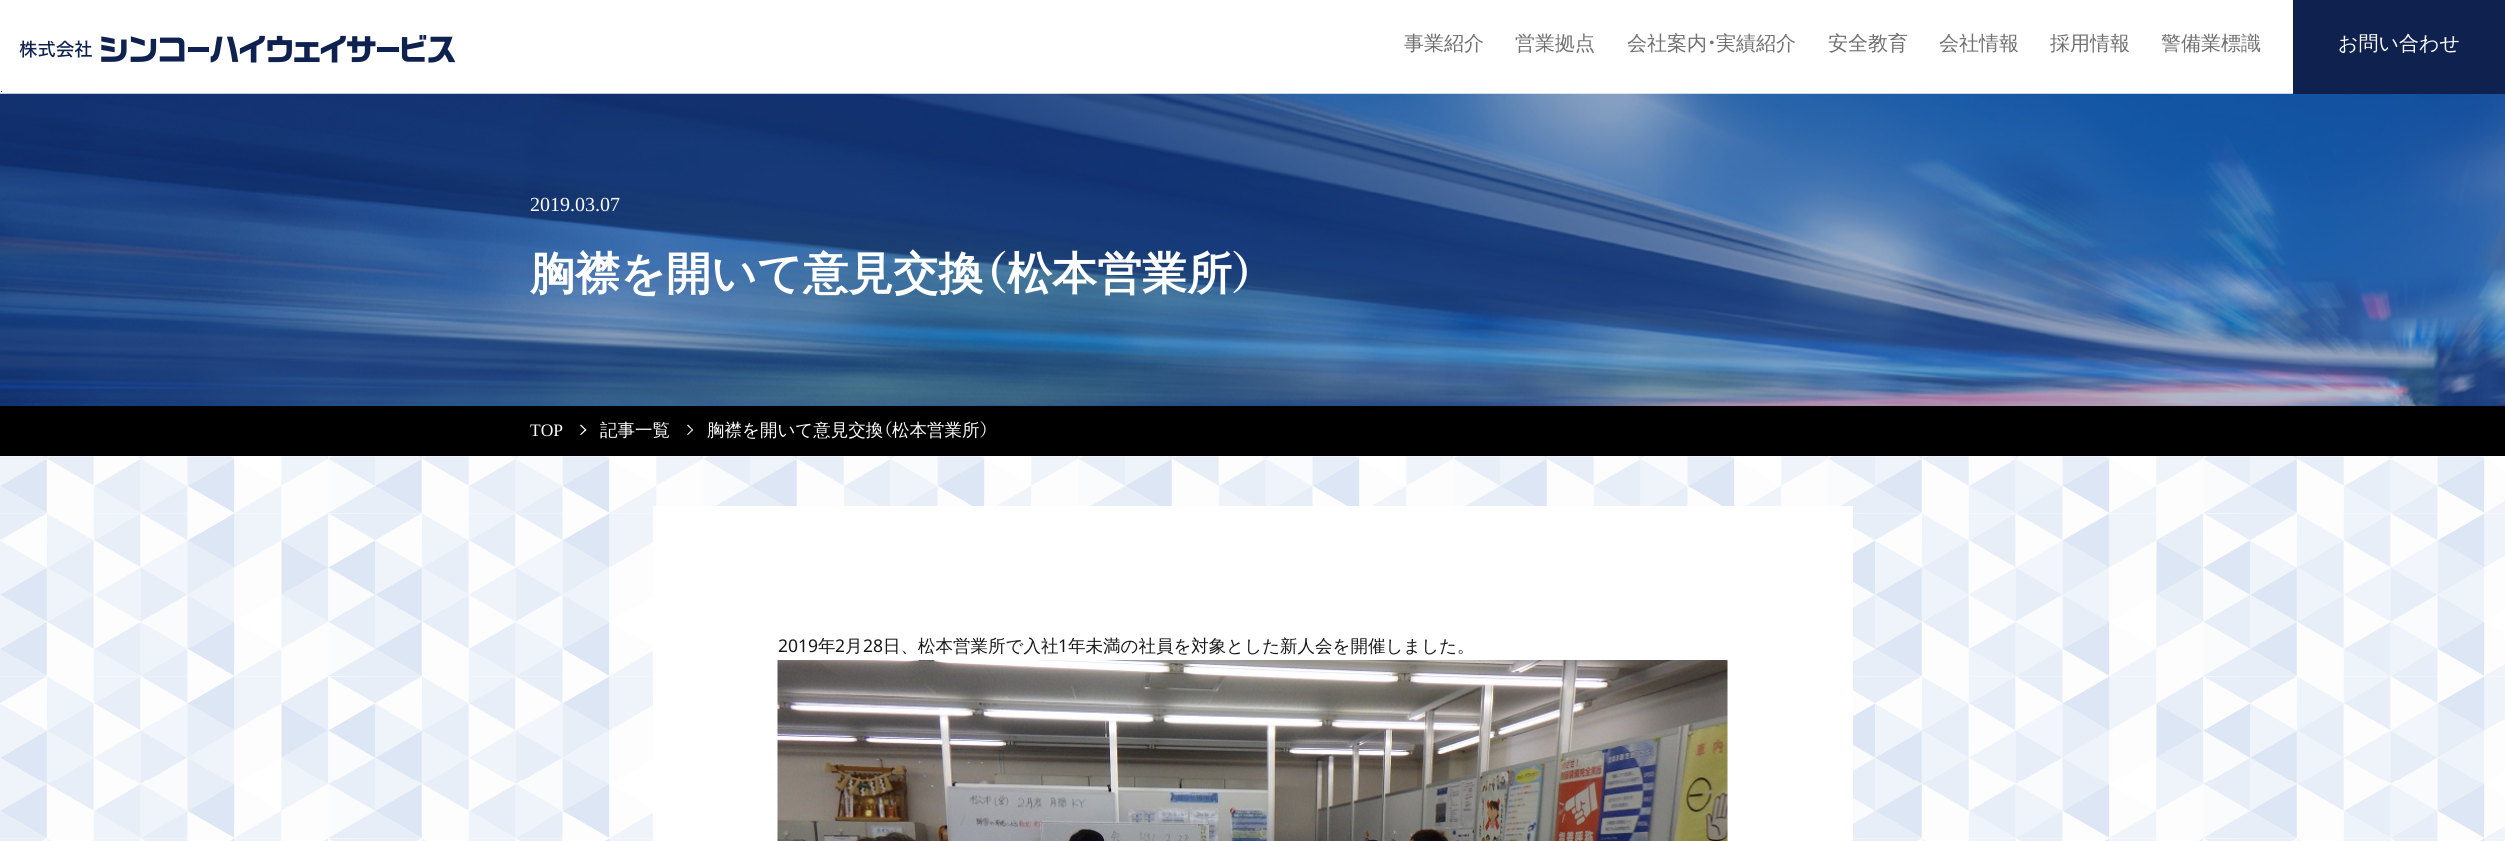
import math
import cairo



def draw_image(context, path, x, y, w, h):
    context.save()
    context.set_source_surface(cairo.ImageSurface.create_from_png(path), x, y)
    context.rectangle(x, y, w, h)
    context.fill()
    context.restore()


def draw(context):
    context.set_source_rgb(1, 1, 1)
    context.paint()
    draw_image(context, "images/1.png", 19, 35, 437, 28)
    draw_image(context, "images/2.png", 0, 93, 2505, 313)
    context.set_source_rgb(15 / 255, 34 / 255, 79 / 255)
    context.rectangle(2293, 0, 212, 94)
    context.fill()
    context.rectangle(1, 91, 1, 1)
    context.fill()
    context.set_source_rgb(0, 0, 0)
    context.rectangle(0, 406, 2505, 50)
    context.fill()
    context.set_source_rgb(1, 1, 1)
    context.new_path()
    context.move_to(580, 425.5)
    context.line_to(581, 424.5)
    context.line_to(586.5, 430)
    context.line_to(585.5, 430.5)
    context.close_path()
    context.fill()
    context.new_path()
    context.move_to(580, 434.5)
    context.line_to(585.5, 429)
    context.line_to(586.5, 430)
    context.line_to(581, 435)
    context.close_path()
    context.fill()
    context.new_path()
    context.move_to(687, 425.5)
    context.line_to(688, 424.5)
    context.line_to(693, 430)
    context.line_to(692.5, 430.5)
    context.close_path()
    context.fill()
    context.new_path()
    context.move_to(687, 434.5)
    context.line_to(692.5, 429)
    context.line_to(693, 430)
    context.line_to(688, 435)
    context.close_path()
    context.fill()
    draw_image(context, "images/3.png", 0, 456, 2505, 385)
    context.rectangle(653, 506, 1200, 335)
    context.fill()
    draw_image(context, "images/4.png", 777, 660, 951, 181)
    context.select_font_face("WenQuanYi Zen Hei Medium")
    context.set_font_size(20)
    context.set_source_rgb(112 / 255, 112 / 255, 112 / 255)
    context.move_to(1404, 50)
    context.show_text("事業紹介")
    context.move_to(1515, 50)
    context.show_text("営業拠点")
    context.move_to(1627, 50)
    context.show_text("会社案内")
    context.select_font_face("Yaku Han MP")
    context.move_to(1707, 50)
    context.show_text("・")
    context.select_font_face("WenQuanYi Zen Hei Medium")
    context.move_to(1716, 50)
    context.show_text("実績紹介")
    context.move_to(1828, 50)
    context.show_text("安全教育")
    context.move_to(1939, 50)
    context.show_text("会社情報")
    context.move_to(2050, 50)
    context.show_text("採用情報")
    context.move_to(2161, 50)
    context.show_text("警備業標識")
    context.set_source_rgb(1, 1, 1)
    context.move_to(2338, 50)
    context.show_text("お問い合わせ")
    context.select_font_face("Liberation Serif")
    context.move_to(530, 211)
    context.show_text("2019.03.07")
    context.select_font_face("WenQuanYi Zen Hei", cairo.FontSlant.NORMAL, cairo.FontWeight.BOLD)
    context.set_font_size(45)
    context.move_to(530, 289)
    context.show_text("胸襟を開いて意見交換")
    context.select_font_face("Yaku Han MP", cairo.FontSlant.NORMAL, cairo.FontWeight.BOLD)
    context.move_to(983, 289)
    context.show_text("（")
    context.select_font_face("WenQuanYi Zen Hei", cairo.FontSlant.NORMAL, cairo.FontWeight.BOLD)
    context.move_to(1007, 289)
    context.show_text("松本営業所")
    context.select_font_face("Yaku Han MP", cairo.FontSlant.NORMAL, cairo.FontWeight.BOLD)
    context.move_to(1232, 289)
    context.show_text("）")
    context.select_font_face("Liberation Serif")
    context.set_font_size(17.5)
    context.move_to(530, 436)
    context.show_text("TOP")
    context.select_font_face("WenQuanYi Zen Hei Medium")
    context.move_to(600, 436)
    context.show_text("記事一覧")
    context.move_to(707, 436)
    context.show_text("胸襟を開いて意見交換")
    context.select_font_face("Yaku Han MP")
    context.move_to(883, 436)
    context.show_text("（")
    context.select_font_face("WenQuanYi Zen Hei Medium")
    context.move_to(892, 436)
    context.show_text("松本営業所")
    context.select_font_face("Yaku Han MP")
    context.move_to(980, 436)
    context.show_text("）")
    context.select_font_face("Noto Sans")
    context.set_source_rgb(23 / 255, 23 / 255, 23 / 255)
    context.move_to(778, 652)
    context.show_text("2019")
    context.select_font_face("WenQuanYi Zen Hei Medium")
    context.move_to(818, 652)
    context.show_text("年")
    context.select_font_face("Noto Sans")
    context.move_to(835, 652)
    context.show_text("2")
    context.select_font_face("WenQuanYi Zen Hei Medium")
    context.move_to(845, 652)
    context.show_text("月")
    context.select_font_face("Noto Sans")
    context.move_to(863, 652)
    context.show_text("28")
    context.select_font_face("WenQuanYi Zen Hei Medium")
    context.move_to(883, 652)
    context.show_text("日、松本営業所で入社")
    context.select_font_face("Noto Sans")
    context.move_to(1058, 652)
    context.show_text("1")
    context.select_font_face("WenQuanYi Zen Hei Medium")
    context.move_to(1068, 652)
    context.show_text("年未満の社員を対象とした新人会を開催しました。")


surface = cairo.ImageSurface(cairo.Format.RGB24, 2505, 841)
context = cairo.Context(surface)
options = cairo.FontOptions()
options.set_hint_metrics(cairo.HintMetrics.OFF)
options.set_hint_style(cairo.HintStyle.NONE)
context.set_font_options(options)
context.set_miter_limit(4)
draw(context)
surface.write_to_png("out.png")
